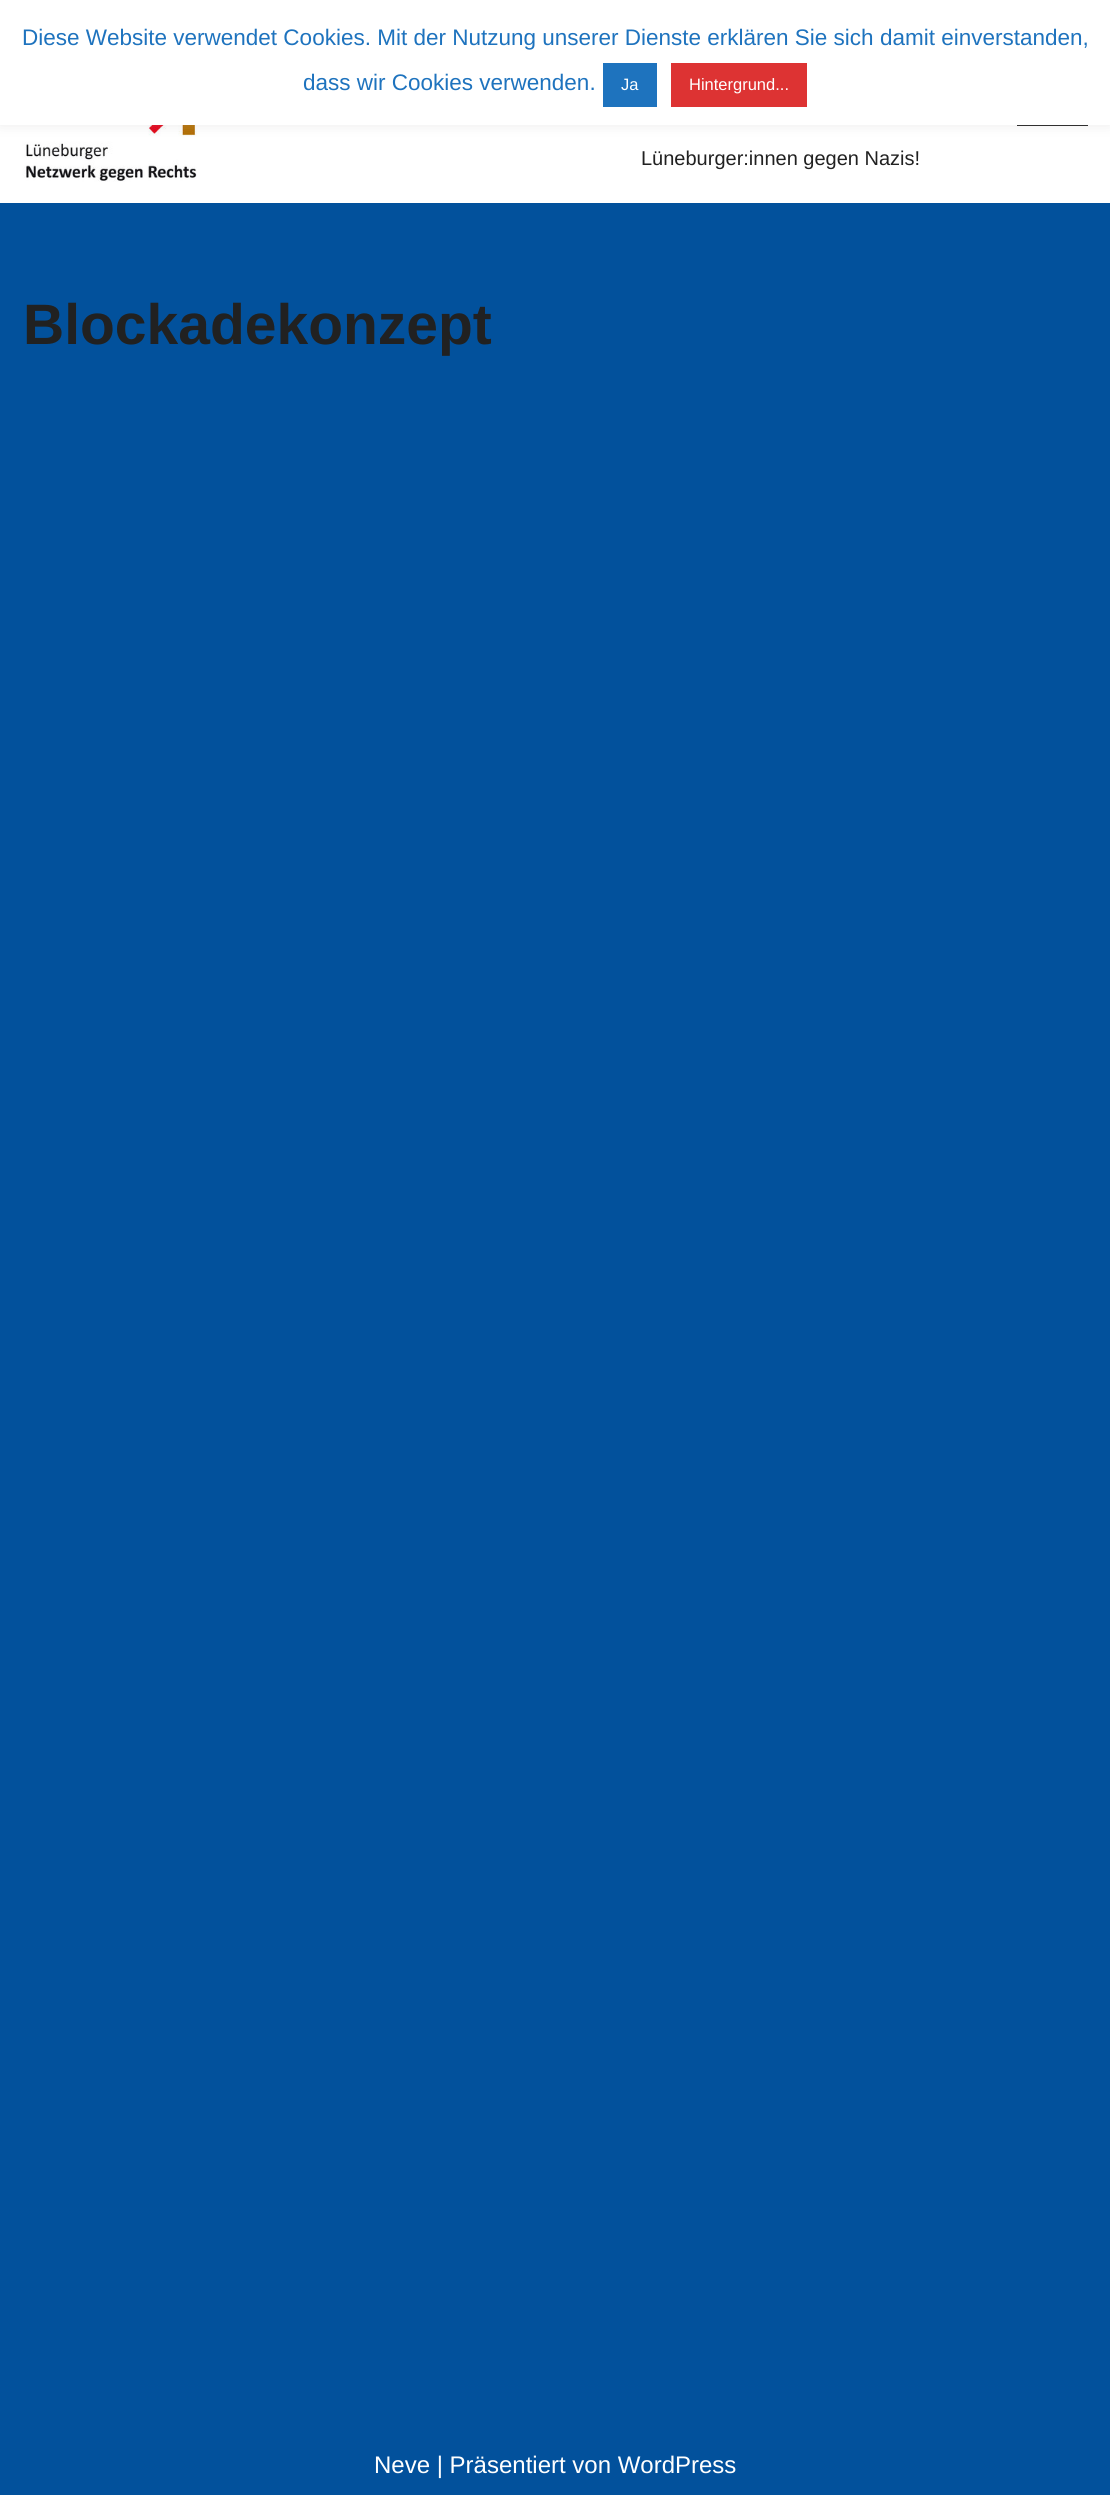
import math
import cairo



def rounded_rect(context, x, y, w, h, r):
    context.new_sub_path()
    for i, (u, v) in enumerate([(x + w - r, y + h - r), (x + r, y + h - r), (x + r, y + r), (x + w - r, y + r)]):
        context.arc(u, v, r, i * math.pi / 2, (i + 1) * math.pi / 2)
    context.close_path()


def draw_shadow(context, x, y, w, h, r, blur, alpha):
    context.push_group_with_content(cairo.Content.ALPHA)
    context.set_operator(cairo.Operator.SOURCE)
    for i in range(15, -16, -2):
        e = blur * i / 6
        if min(w, h) + 2 * e > 0:
            context.set_source_rgba(0, 0, 0, alpha * math.erfc((i - 1) / 8.5) / 2)
            rounded_rect(context, x - e, y - e, w + 2 * e, h + 2 * e, max(0, min(r + e + blur * .6, min(w, h) / 2 + e)))
            context.fill()
    context.mask(context.pop_group())


def draw_image(context, path, x, y, w, h):
    context.save()
    context.set_source_surface(cairo.ImageSurface.create_from_png(path), x, y)
    context.rectangle(x, y, w, h)
    context.fill()
    context.restore()


def draw(context):
    context.set_source_rgb(2 / 255, 81 / 255, 156 / 255)
    context.paint()
    context.set_source_rgb(1, 1, 1)
    context.rectangle(0, 125, 1110, 78)
    context.fill()
    context.rectangle(1018, 76, 69, 49)
    context.set_source_rgb(33 / 255, 33 / 255, 33 / 255)
    context.stroke()
    draw_image(context, "images/1.png", 22, 125, 175, 57)
    context.set_source_rgb(172 / 255, 171 / 255, 171 / 255)
    draw_shadow(context, 0, -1, 1110, 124, 0, 7.5, 0.3)
    context.set_source_rgb(1, 1, 1)
    context.rectangle(0, 0, 1110, 125)
    context.fill()
    context.set_source_rgb(30 / 255, 115 / 255, 190 / 255)
    context.rectangle(603, 63, 54, 44)
    context.fill()
    context.set_source_rgb(221 / 255, 51 / 255, 51 / 255)
    context.rectangle(671, 63, 136, 44)
    context.fill()
    context.select_font_face("Liberation Sans")
    context.set_font_size(22.5)
    context.set_source_rgb(30 / 255, 115 / 255, 190 / 255)
    context.move_to(22, 45)
    context.show_text("Diese Website verwendet Cookies. Mit der Nutzung unserer Dienste erklären Sie sich damit einverstanden,")
    context.move_to(303, 90)
    context.show_text("dass wir Cookies verwenden.")
    context.set_font_size(16.5)
    context.set_source_rgb(1, 1, 1)
    context.move_to(621, 90)
    context.show_text("Ja")
    context.move_to(689, 90)
    context.show_text("Hintergrund...")
    context.set_font_size(20)
    context.set_source_rgb(33 / 255, 33 / 255, 33 / 255)
    context.move_to(641, 165)
    context.show_text("Lüneburger:innen gegen Nazis!")
    context.select_font_face("Liberation Sans", cairo.FontSlant.NORMAL, cairo.FontWeight.BOLD)
    context.set_font_size(57)
    context.move_to(23, 344)
    context.show_text("Blockadekonzept")
    context.select_font_face("Liberation Sans")
    context.set_font_size(24)
    context.set_source_rgb(1, 1, 1)
    context.move_to(374, 2473)
    context.show_text("Neve | Präsentiert von WordPress")


surface = cairo.ImageSurface(cairo.Format.RGB24, 1110, 2495)
context = cairo.Context(surface)
options = cairo.FontOptions()
options.set_hint_metrics(cairo.HintMetrics.OFF)
options.set_hint_style(cairo.HintStyle.NONE)
context.set_font_options(options)
context.set_miter_limit(4)
draw(context)
surface.write_to_png("out.png")
